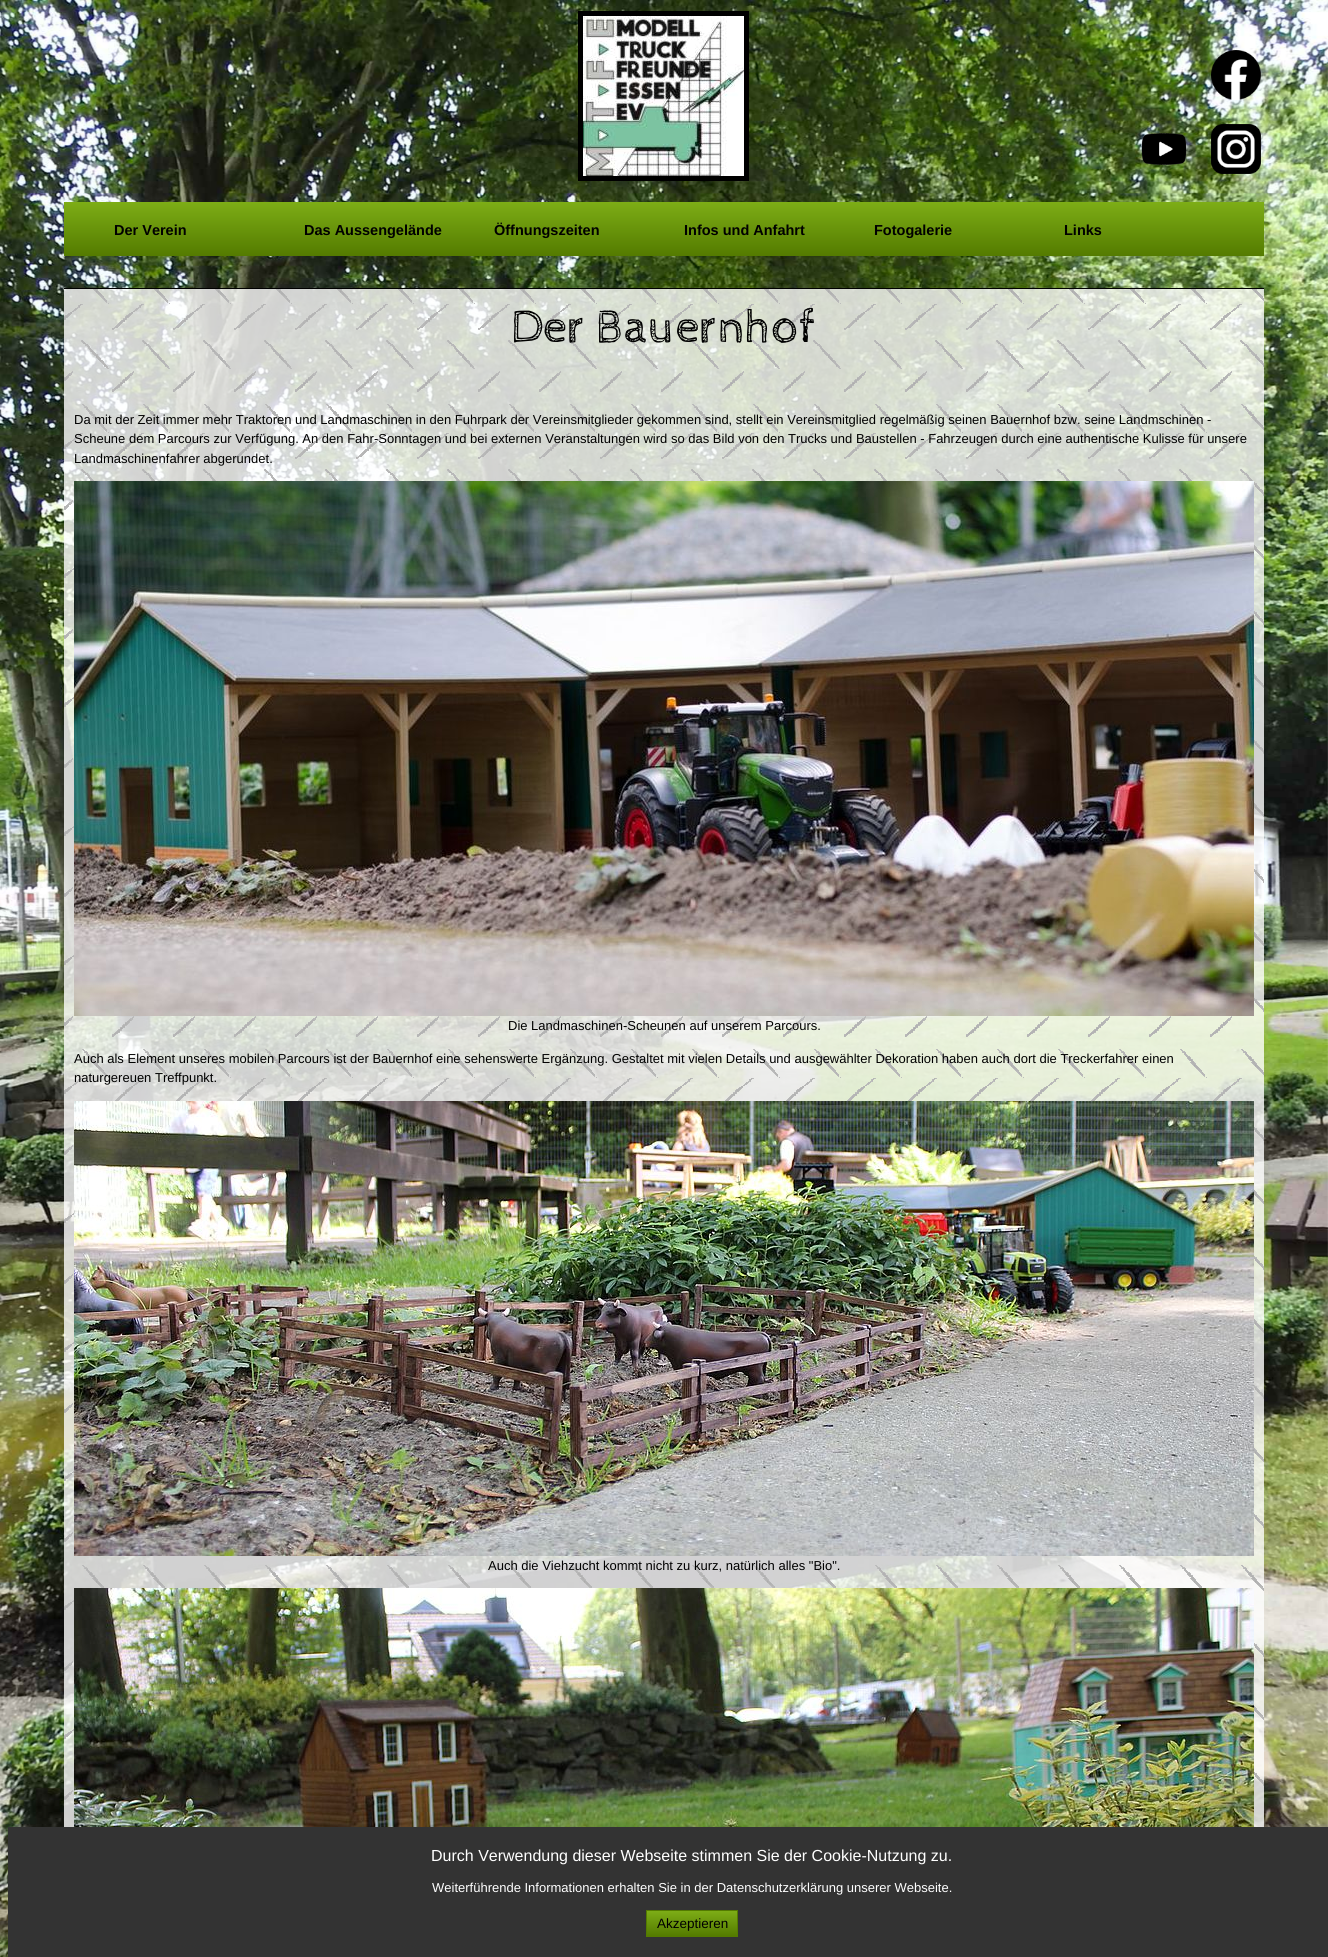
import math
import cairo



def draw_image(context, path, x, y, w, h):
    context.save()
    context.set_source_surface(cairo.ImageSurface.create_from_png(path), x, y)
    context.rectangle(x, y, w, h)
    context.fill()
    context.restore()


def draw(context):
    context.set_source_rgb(1, 1, 1)
    context.paint()
    draw_image(context, "images/1.png", 0, 0, 1328, 1957)
    context.rectangle(580.5, 13.5, 166, 165)
    context.set_source_rgb(0, 0, 0)
    context.set_line_width(5)
    context.stroke()
    draw_image(context, "images/2.png", 583, 16, 161, 160)
    draw_image(context, "images/3.png", 1211, 50, 50, 50)
    draw_image(context, "images/4.png", 1141, 133, 46, 32)
    draw_image(context, "images/5.png", 1211, 124, 50, 50)
    gradient = cairo.LinearGradient(664, 202, 664, 256)
    gradient.add_color_stop_rgba(0, 125 / 255, 173 / 255, 22 / 255, 1)
    gradient.add_color_stop_rgba(1, 84 / 255, 123 / 255, 0, 1)
    context.set_source(gradient)
    context.rectangle(64, 202, 1200, 54)
    context.fill()
    context.set_source_rgba(1, 1, 1, 0.8)
    context.rectangle(64, 289, 1200, 1538)
    context.fill()
    draw_image(context, "images/6.png", 64, 289, 1200, 1511)
    context.set_source_rgb(0, 0, 0)
    context.rectangle(64, 288, 1200, 1)
    context.fill()
    draw_image(context, "images/7.png", 74, 481, 1180, 535)
    draw_image(context, "images/8.png", 74, 1101, 1180, 455)
    draw_image(context, "images/9.png", 74, 1588, 1180, 239)
    context.set_source_rgb(51 / 255, 51 / 255, 51 / 255)
    context.rectangle(8, 1827, 1320, 130)
    context.fill()
    gradient = cairo.LinearGradient(692, 1911, 692, 1936)
    gradient.add_color_stop_rgba(0, 125 / 255, 173 / 255, 22 / 255, 1)
    gradient.add_color_stop_rgba(1, 84 / 255, 123 / 255, 0, 1)
    context.set_source(gradient)
    context.rectangle(647, 1911, 90, 25)
    context.fill()
    context.rectangle(646.5, 1910.5, 91, 26)
    context.set_source_rgb(84 / 255, 123 / 255, 0)
    context.set_line_width(1)
    context.stroke()
    context.select_font_face("Liberation Sans", cairo.FontSlant.NORMAL, cairo.FontWeight.BOLD)
    context.set_font_size(14.5)
    context.set_source_rgb(0, 0, 0)
    context.move_to(114, 235)
    context.show_text("Der Verein")
    context.move_to(304, 235)
    context.show_text("Das Aussengelände")
    context.move_to(494, 235)
    context.show_text("Öffnungszeiten")
    context.move_to(684, 235)
    context.show_text("Infos und Anfahrt")
    context.move_to(874, 235)
    context.show_text("Fotogalerie")
    context.move_to(1064, 235)
    context.show_text("Links")
    context.select_font_face("Cabin Sketch")
    context.set_font_size(48)
    context.move_to(511, 342)
    context.show_text("Der Bauernhof")
    context.select_font_face("Liberation Sans")
    context.set_font_size(13)
    context.move_to(74, 424)
    context.show_text("Da mit der Zeit immer mehr Traktoren und Landmaschinen in den Fuhrpark der Vereinsmitglieder gekommen sind, stellt ein Vereinsmitglied regelmäßig seinen Bauernhof bzw. seine Landmschinen -")
    context.move_to(74, 443)
    context.show_text("Scheune dem Parcours zur Verfügung. An den Fahr-Sonntagen und bei externen Veranstaltungen wird so das Bild von den Trucks und Baustellen - Fahrzeugen durch eine authentische Kulisse für unsere")
    context.move_to(74, 463)
    context.show_text("Landmaschinenfahrer abgerundet.")
    context.move_to(508, 1030)
    context.show_text("Die Landmaschinen-Scheunen auf unserem Parcours.")
    context.move_to(74, 1063)
    context.show_text("Auch als Element unseres mobilen Parcours ist der Bauernhof eine sehenswerte Ergänzung. Gestaltet mit vielen Details und ausgewählter Dekoration haben auch dort die Treckerfahrer einen")
    context.move_to(74, 1082)
    context.show_text("naturgereuen Treffpunkt.")
    context.move_to(488, 1570)
    context.show_text("Auch die Viehzucht kommt nicht zu kurz, natürlich alles \"Bio\".")
    context.set_font_size(16)
    context.set_source_rgb(1, 1, 1)
    context.move_to(431, 1861)
    context.show_text("Durch Verwendung dieser Webseite stimmen Sie der Cookie-Nutzung zu.")
    context.set_font_size(13)
    context.move_to(432, 1892)
    context.show_text("Weiterführende Informationen erhalten Sie in der Datenschutzerklärung unserer Webseite.")
    context.set_font_size(13.5)
    context.set_source_rgb(0, 0, 0)
    context.move_to(657, 1928)
    context.show_text("Akzeptieren")


surface = cairo.ImageSurface(cairo.Format.RGB24, 1328, 1957)
context = cairo.Context(surface)
options = cairo.FontOptions()
options.set_hint_metrics(cairo.HintMetrics.OFF)
options.set_hint_style(cairo.HintStyle.NONE)
context.set_font_options(options)
context.set_miter_limit(4)
draw(context)
surface.write_to_png("out.png")
